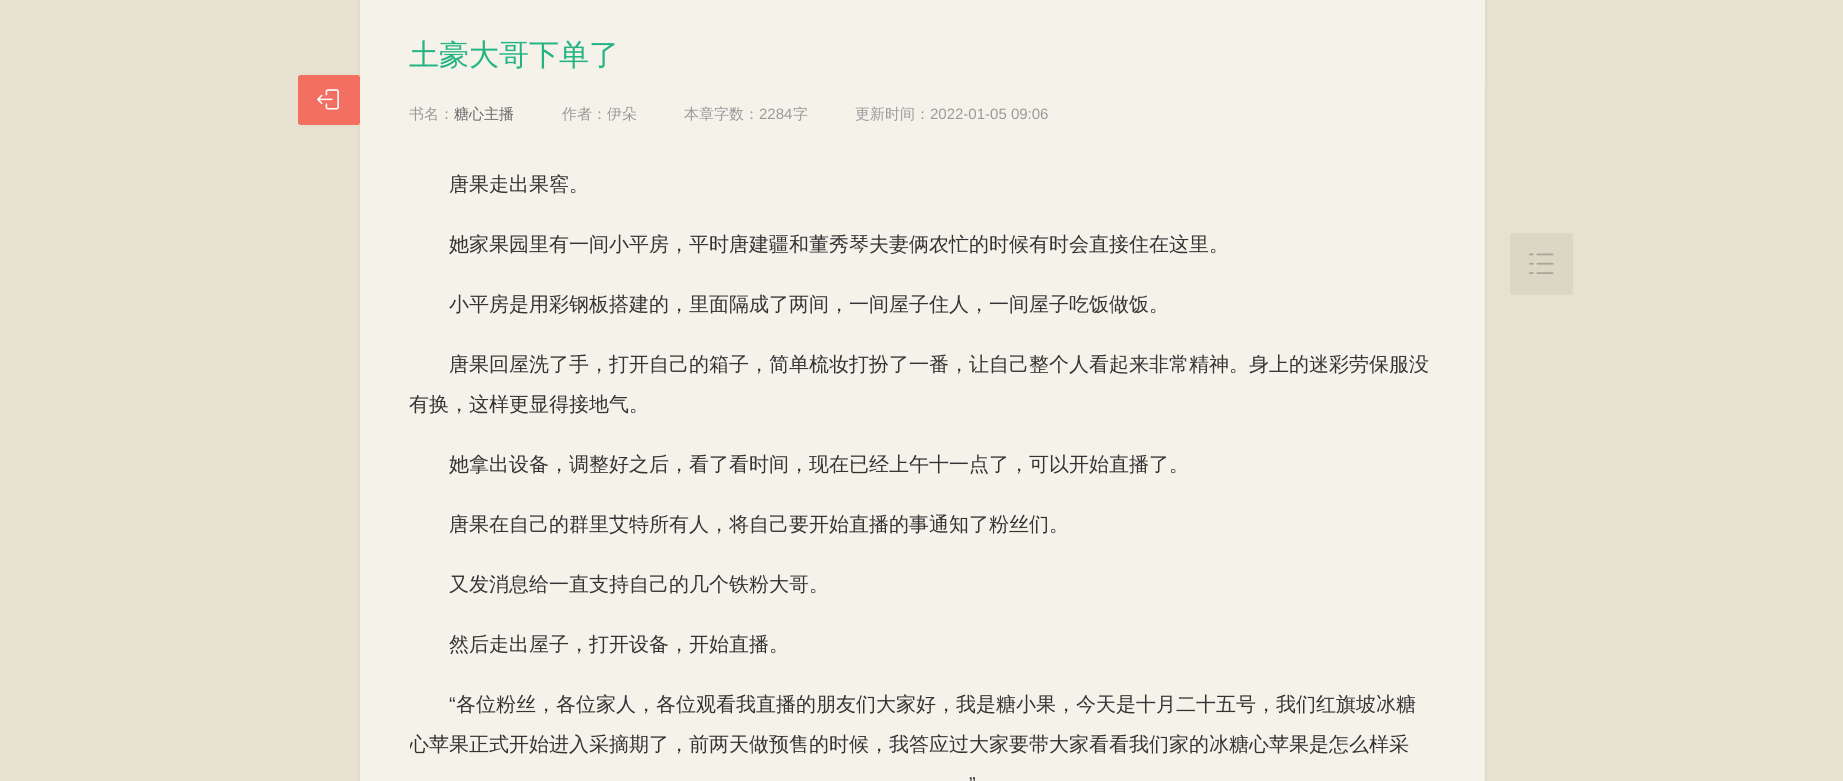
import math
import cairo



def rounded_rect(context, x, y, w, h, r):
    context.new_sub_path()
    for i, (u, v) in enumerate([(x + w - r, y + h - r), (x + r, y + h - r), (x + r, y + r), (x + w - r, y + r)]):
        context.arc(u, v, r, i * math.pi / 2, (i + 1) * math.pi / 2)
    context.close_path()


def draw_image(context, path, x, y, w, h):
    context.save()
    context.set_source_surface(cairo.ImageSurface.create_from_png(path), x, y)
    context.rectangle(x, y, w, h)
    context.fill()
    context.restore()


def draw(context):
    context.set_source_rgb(230 / 255, 226 / 255, 207 / 255)
    context.paint()
    draw_image(context, "images/1.png", 358, 0, 1129, 781)
    context.set_source_rgb(242 / 255, 111 / 255, 98 / 255)
    rounded_rect(context, 298, 75, 62, 50, 2.5)
    context.fill()
    draw_image(context, "images/2.png", 317, 89, 22, 21)
    context.set_source_rgb(245 / 255, 243 / 255, 233 / 255)
    context.rectangle(360, 0, 1125, 85)
    context.fill()
    context.set_source_rgb(219 / 255, 215 / 255, 197 / 255)
    rounded_rect(context, 1510, 233, 63, 62, 2.5)
    context.fill()
    draw_image(context, "images/3.png", 1529, 253, 25, 21)
    context.select_font_face("WenQuanYi Zen Hei Medium")
    context.set_font_size(30)
    context.set_source_rgb(36 / 255, 179 / 255, 131 / 255)
    context.move_to(409, 65)
    context.show_text("土豪大哥下单了")
    context.set_font_size(15)
    context.set_source_rgb(153 / 255, 153 / 255, 153 / 255)
    context.move_to(409, 119)
    context.show_text("书名：")
    context.set_source_rgb(102 / 255, 102 / 255, 102 / 255)
    context.move_to(454, 119)
    context.show_text("糖心主播")
    context.set_source_rgb(153 / 255, 153 / 255, 153 / 255)
    context.move_to(562, 119)
    context.show_text("作者：伊朵")
    context.move_to(684, 119)
    context.show_text("本章字数：")
    context.select_font_face("Liberation Sans")
    context.move_to(759, 119)
    context.show_text("2284")
    context.select_font_face("WenQuanYi Zen Hei Medium")
    context.move_to(793, 119)
    context.show_text("字")
    context.move_to(855, 119)
    context.show_text("更新时间：")
    context.select_font_face("Liberation Sans")
    context.move_to(930, 119)
    context.show_text("2022-01-05 09:06")
    context.select_font_face("WenQuanYi Zen Hei Medium")
    context.set_font_size(20)
    context.set_source_rgb(51 / 255, 51 / 255, 51 / 255)
    context.move_to(449, 191)
    context.show_text("唐果走出果窖。")
    context.move_to(449, 251)
    context.show_text("她家果园里有一间小平房，平时唐建疆和董秀琴夫妻俩农忙的时候有时会直接住在这里。")
    context.move_to(449, 311)
    context.show_text("小平房是用彩钢板搭建的，里面隔成了两间，一间屋子住人，一间屋子吃饭做饭。")
    context.move_to(449, 371)
    context.show_text("唐果回屋洗了手，打开自己的箱子，简单梳妆打扮了一番，让自己整个人看起来非常精神。身上的迷彩劳保服没")
    context.move_to(409, 411)
    context.show_text("有换，这样更显得接地气。")
    context.move_to(449, 471)
    context.show_text("她拿出设备，调整好之后，看了看时间，现在已经上午十一点了，可以开始直播了。")
    context.move_to(449, 531)
    context.show_text("唐果在自己的群里艾特所有人，将自己要开始直播的事通知了粉丝们。")
    context.move_to(449, 591)
    context.show_text("又发消息给一直支持自己的几个铁粉大哥。")
    context.move_to(449, 651)
    context.show_text("然后走出屋子，打开设备，开始直播。")
    context.select_font_face("Liberation Sans")
    context.move_to(449, 711)
    context.show_text("“")
    context.select_font_face("WenQuanYi Zen Hei Medium")
    context.move_to(456, 711)
    context.show_text("各位粉丝，各位家人，各位观看我直播的朋友们大家好，我是糖小果，今天是十月二十五号，我们红旗坡冰糖")
    context.save()
    context.rectangle(410, 130, 1025, 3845)
    context.clip()
    context.move_to(409, 751)
    context.show_text("心苹果正式开始进入采摘期了，前两天做预售的时候，我答应过大家要带大家看看我们家的冰糖心苹果是怎么样采")
    context.restore()
    context.select_font_face("Liberation Sans")
    context.move_to(969, 791)
    context.show_text("”")


surface = cairo.ImageSurface(cairo.Format.RGB24, 1843, 781)
context = cairo.Context(surface)
options = cairo.FontOptions()
options.set_hint_metrics(cairo.HintMetrics.OFF)
options.set_hint_style(cairo.HintStyle.NONE)
context.set_font_options(options)
context.set_miter_limit(4)
draw(context)
surface.write_to_png("out.png")
